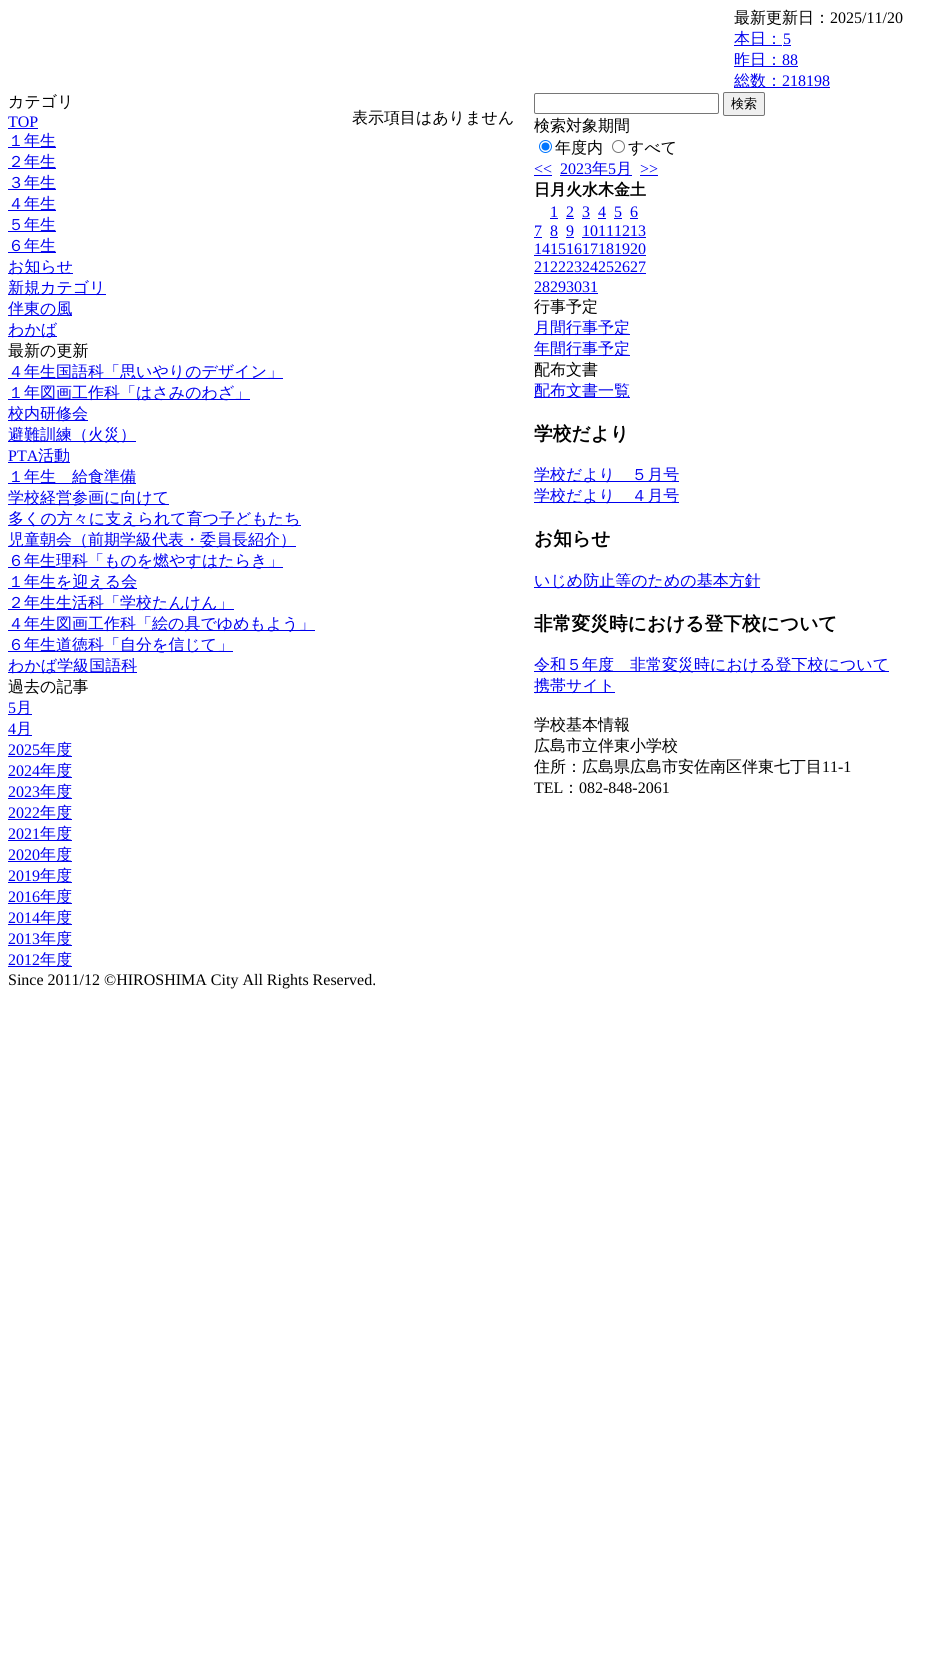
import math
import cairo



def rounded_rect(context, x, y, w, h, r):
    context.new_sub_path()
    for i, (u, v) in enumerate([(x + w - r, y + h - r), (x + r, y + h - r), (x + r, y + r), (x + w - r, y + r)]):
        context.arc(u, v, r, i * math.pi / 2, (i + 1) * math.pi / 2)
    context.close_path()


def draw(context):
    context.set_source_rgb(1, 1, 1)
    context.paint()
    context.set_source_rgb(0, 0, 238 / 255)
    context.rectangle(734, 45, 48, 1)
    context.fill()
    context.rectangle(783, 45, 8, 1)
    context.fill()
    context.rectangle(734, 66, 64, 1)
    context.fill()
    context.rectangle(734, 87, 96, 1)
    context.fill()
    context.rectangle(8, 128, 30, 1)
    context.fill()
    context.rectangle(8, 147, 48, 1)
    context.fill()
    context.rectangle(8, 168, 48, 1)
    context.fill()
    context.rectangle(8, 189, 48, 1)
    context.fill()
    context.rectangle(8, 210, 48, 1)
    context.fill()
    context.rectangle(8, 231, 48, 1)
    context.fill()
    context.rectangle(8, 252, 48, 1)
    context.fill()
    context.rectangle(8, 273, 65, 1)
    context.fill()
    context.rectangle(8, 294, 98, 1)
    context.fill()
    context.rectangle(8, 315, 64, 1)
    context.fill()
    context.rectangle(8, 336, 49, 1)
    context.fill()
    context.rectangle(8, 378, 275, 1)
    context.fill()
    context.rectangle(8, 399, 242, 1)
    context.fill()
    context.rectangle(8, 420, 80, 1)
    context.fill()
    context.rectangle(8, 441, 128, 1)
    context.fill()
    context.rectangle(8, 462, 62, 1)
    context.fill()
    context.rectangle(8, 483, 128, 1)
    context.fill()
    context.rectangle(8, 504, 161, 1)
    context.fill()
    context.rectangle(8, 525, 293, 1)
    context.fill()
    context.rectangle(8, 546, 288, 1)
    context.fill()
    context.rectangle(8, 567, 275, 1)
    context.fill()
    context.rectangle(8, 588, 129, 1)
    context.fill()
    context.rectangle(8, 609, 226, 1)
    context.fill()
    context.rectangle(8, 630, 307, 1)
    context.fill()
    context.rectangle(8, 651, 225, 1)
    context.fill()
    context.rectangle(8, 672, 129, 1)
    context.fill()
    context.rectangle(8, 714, 24, 1)
    context.fill()
    context.rectangle(8, 735, 24, 1)
    context.fill()
    context.rectangle(8, 756, 64, 1)
    context.fill()
    context.rectangle(8, 777, 64, 1)
    context.fill()
    context.rectangle(8, 798, 64, 1)
    context.fill()
    context.rectangle(8, 819, 64, 1)
    context.fill()
    context.rectangle(8, 840, 64, 1)
    context.fill()
    context.rectangle(8, 861, 64, 1)
    context.fill()
    context.rectangle(8, 882, 64, 1)
    context.fill()
    context.rectangle(8, 903, 64, 1)
    context.fill()
    context.rectangle(8, 924, 64, 1)
    context.fill()
    context.rectangle(8, 945, 64, 1)
    context.fill()
    context.rectangle(8, 966, 64, 1)
    context.fill()
    rounded_rect(context, 534.5, 93.5, 184, 20, 1.5)
    context.set_source_rgb(118 / 255, 118 / 255, 118 / 255)
    context.set_line_width(1)
    context.stroke()
    context.set_source_rgb(239 / 255, 239 / 255, 239 / 255)
    rounded_rect(context, 723.5, 92.5, 41, 23, 1.5)
    context.fill_preserve()
    context.set_source_rgb(118 / 255, 118 / 255, 118 / 255)
    context.stroke()
    context.arc(545.5, 146.5, 6, 0, 2 * math.pi)
    context.set_source_rgb(0, 117 / 255, 1)
    context.stroke()
    context.arc(545.5, 146.5, 4, 0, 2 * math.pi)
    context.fill()
    context.arc(618.5, 146.5, 6, 0, 2 * math.pi)
    context.set_source_rgb(118 / 255, 118 / 255, 118 / 255)
    context.stroke()
    context.set_source_rgb(0, 0, 238 / 255)
    context.rectangle(534, 175, 18, 1)
    context.fill()
    context.rectangle(560, 175, 72, 1)
    context.fill()
    context.rectangle(640, 175, 18, 1)
    context.fill()
    context.rectangle(550, 218, 8, 1)
    context.fill()
    context.rectangle(566, 218, 8, 1)
    context.fill()
    context.rectangle(582, 218, 8, 1)
    context.fill()
    context.rectangle(598, 218, 8, 1)
    context.fill()
    context.rectangle(614, 218, 8, 1)
    context.fill()
    context.rectangle(630, 218, 8, 1)
    context.fill()
    context.rectangle(534, 237, 8, 1)
    context.fill()
    context.rectangle(550, 237, 8, 1)
    context.fill()
    context.rectangle(566, 237, 8, 1)
    context.fill()
    context.rectangle(582, 237, 64, 1)
    context.fill()
    context.rectangle(534, 255, 112, 1)
    context.fill()
    context.rectangle(534, 273, 112, 1)
    context.fill()
    context.rectangle(534, 293, 64, 1)
    context.fill()
    context.rectangle(534, 334, 96, 1)
    context.fill()
    context.rectangle(534, 355, 96, 1)
    context.fill()
    context.rectangle(534, 397, 96, 1)
    context.fill()
    context.rectangle(534, 481, 145, 1)
    context.fill()
    context.rectangle(534, 502, 145, 1)
    context.fill()
    context.rectangle(534, 587, 226, 1)
    context.fill()
    context.rectangle(534, 671, 355, 1)
    context.fill()
    context.rectangle(534, 692, 81, 1)
    context.fill()
    context.select_font_face("WenQuanYi Zen Hei Medium")
    context.set_font_size(16)
    context.set_source_rgb(0, 0, 0)
    context.move_to(734, 23)
    context.show_text("最新更新日：")
    context.select_font_face("Liberation Serif")
    context.move_to(830, 23)
    context.show_text("2025/11/20")
    context.select_font_face("WenQuanYi Zen Hei Medium")
    context.set_source_rgb(0, 0, 238 / 255)
    context.move_to(734, 44)
    context.show_text("本日：")
    context.select_font_face("Liberation Serif")
    context.move_to(783, 44)
    context.show_text("5")
    context.select_font_face("WenQuanYi Zen Hei Medium")
    context.move_to(734, 65)
    context.show_text("昨日：")
    context.select_font_face("Liberation Serif")
    context.move_to(782, 65)
    context.show_text("88")
    context.select_font_face("WenQuanYi Zen Hei Medium")
    context.move_to(734, 86)
    context.show_text("総数：")
    context.select_font_face("Liberation Serif")
    context.move_to(782, 86)
    context.show_text("218198")
    context.select_font_face("WenQuanYi Zen Hei Medium")
    context.set_source_rgb(0, 0, 0)
    context.move_to(8, 107)
    context.show_text("カテゴリ")
    context.select_font_face("Liberation Serif")
    context.set_source_rgb(0, 0, 238 / 255)
    context.move_to(8, 127)
    context.show_text("TOP")
    context.select_font_face("WenQuanYi Zen Hei Medium")
    context.move_to(8, 146)
    context.show_text("１年生")
    context.move_to(8, 167)
    context.show_text("２年生")
    context.move_to(8, 188)
    context.show_text("３年生")
    context.move_to(8, 209)
    context.show_text("４年生")
    context.move_to(8, 230)
    context.show_text("５年生")
    context.move_to(8, 251)
    context.show_text("６年生")
    context.move_to(8, 272)
    context.show_text("お知らせ")
    context.move_to(8, 293)
    context.show_text("新規カテゴリ")
    context.move_to(8, 314)
    context.show_text("伴東の風")
    context.move_to(8, 335)
    context.show_text("わかば")
    context.set_source_rgb(0, 0, 0)
    context.move_to(8, 356)
    context.show_text("最新の更新")
    context.set_source_rgb(0, 0, 238 / 255)
    context.move_to(8, 377)
    context.show_text("４年生国語科「思いやりのデザイン」")
    context.move_to(8, 398)
    context.show_text("１年図画工作科「はさみのわざ」")
    context.move_to(8, 419)
    context.show_text("校内研修会")
    context.move_to(8, 440)
    context.show_text("避難訓練（火災）")
    context.select_font_face("Liberation Serif")
    context.move_to(8, 461)
    context.show_text("PTA")
    context.select_font_face("WenQuanYi Zen Hei Medium")
    context.move_to(38, 461)
    context.show_text("活動")
    context.move_to(8, 482)
    context.show_text("１年生　給食準備")
    context.move_to(8, 503)
    context.show_text("学校経営参画に向けて")
    context.move_to(8, 524)
    context.show_text("多くの方々に支えられて育つ子どもたち")
    context.move_to(8, 545)
    context.show_text("児童朝会（前期学級代表・委員長紹介）")
    context.move_to(8, 566)
    context.show_text("６年生理科「ものを燃やすはたらき」")
    context.move_to(8, 587)
    context.show_text("１年生を迎える会")
    context.move_to(8, 608)
    context.show_text("２年生生活科「学校たんけん」")
    context.move_to(8, 629)
    context.show_text("４年生図画工作科「絵の具でゆめもよう」")
    context.move_to(8, 650)
    context.show_text("６年生道徳科「自分を信じて」")
    context.move_to(8, 671)
    context.show_text("わかば学級国語科")
    context.set_source_rgb(0, 0, 0)
    context.move_to(8, 692)
    context.show_text("過去の記事")
    context.select_font_face("Liberation Serif")
    context.set_source_rgb(0, 0, 238 / 255)
    context.move_to(8, 713)
    context.show_text("5")
    context.select_font_face("WenQuanYi Zen Hei Medium")
    context.move_to(16, 713)
    context.show_text("月")
    context.select_font_face("Liberation Serif")
    context.move_to(8, 734)
    context.show_text("4")
    context.select_font_face("WenQuanYi Zen Hei Medium")
    context.move_to(16, 734)
    context.show_text("月")
    context.select_font_face("Liberation Serif")
    context.move_to(8, 755)
    context.show_text("2025")
    context.select_font_face("WenQuanYi Zen Hei Medium")
    context.move_to(40, 755)
    context.show_text("年度")
    context.select_font_face("Liberation Serif")
    context.move_to(8, 776)
    context.show_text("2024")
    context.select_font_face("WenQuanYi Zen Hei Medium")
    context.move_to(40, 776)
    context.show_text("年度")
    context.select_font_face("Liberation Serif")
    context.move_to(8, 797)
    context.show_text("2023")
    context.select_font_face("WenQuanYi Zen Hei Medium")
    context.move_to(40, 797)
    context.show_text("年度")
    context.select_font_face("Liberation Serif")
    context.move_to(8, 818)
    context.show_text("2022")
    context.select_font_face("WenQuanYi Zen Hei Medium")
    context.move_to(40, 818)
    context.show_text("年度")
    context.select_font_face("Liberation Serif")
    context.move_to(8, 839)
    context.show_text("2021")
    context.select_font_face("WenQuanYi Zen Hei Medium")
    context.move_to(40, 839)
    context.show_text("年度")
    context.select_font_face("Liberation Serif")
    context.move_to(8, 860)
    context.show_text("2020")
    context.select_font_face("WenQuanYi Zen Hei Medium")
    context.move_to(40, 860)
    context.show_text("年度")
    context.select_font_face("Liberation Serif")
    context.move_to(8, 881)
    context.show_text("2019")
    context.select_font_face("WenQuanYi Zen Hei Medium")
    context.move_to(40, 881)
    context.show_text("年度")
    context.select_font_face("Liberation Serif")
    context.move_to(8, 902)
    context.show_text("2016")
    context.select_font_face("WenQuanYi Zen Hei Medium")
    context.move_to(40, 902)
    context.show_text("年度")
    context.select_font_face("Liberation Serif")
    context.move_to(8, 923)
    context.show_text("2014")
    context.select_font_face("WenQuanYi Zen Hei Medium")
    context.move_to(40, 923)
    context.show_text("年度")
    context.select_font_face("Liberation Serif")
    context.move_to(8, 944)
    context.show_text("2013")
    context.select_font_face("WenQuanYi Zen Hei Medium")
    context.move_to(40, 944)
    context.show_text("年度")
    context.select_font_face("Liberation Serif")
    context.move_to(8, 965)
    context.show_text("2012")
    context.select_font_face("WenQuanYi Zen Hei Medium")
    context.move_to(40, 965)
    context.show_text("年度")
    context.set_source_rgb(0, 0, 0)
    context.move_to(352, 123)
    context.show_text("表示項目はありません")
    context.set_font_size(13)
    context.move_to(731, 108)
    context.show_text("検索")
    context.set_font_size(16)
    context.move_to(534, 131)
    context.show_text("検索対象期間")
    context.move_to(555, 153)
    context.show_text("年度内")
    context.move_to(628, 153)
    context.show_text("すべて")
    context.select_font_face("Liberation Serif")
    context.set_source_rgb(0, 0, 238 / 255)
    context.move_to(534, 174)
    context.show_text("<<")
    context.move_to(560, 174)
    context.show_text("2023")
    context.select_font_face("WenQuanYi Zen Hei Medium")
    context.move_to(592, 174)
    context.show_text("年")
    context.select_font_face("Liberation Serif")
    context.move_to(608, 174)
    context.show_text("5")
    context.select_font_face("WenQuanYi Zen Hei Medium")
    context.move_to(616, 174)
    context.show_text("月")
    context.select_font_face("Liberation Serif")
    context.move_to(640, 174)
    context.show_text(">>")
    context.select_font_face("WenQuanYi Zen Hei", cairo.FontSlant.NORMAL, cairo.FontWeight.BOLD)
    context.set_source_rgb(0, 0, 0)
    context.move_to(534, 195)
    context.show_text("日月火水木金土")
    context.select_font_face("Liberation Serif")
    context.set_source_rgb(0, 0, 238 / 255)
    context.move_to(550, 217)
    context.show_text("1")
    context.move_to(566, 217)
    context.show_text("2")
    context.move_to(582, 217)
    context.show_text("3")
    context.move_to(598, 217)
    context.show_text("4")
    context.move_to(614, 217)
    context.show_text("5")
    context.move_to(630, 217)
    context.show_text("6")
    context.move_to(534, 236)
    context.show_text("7")
    context.move_to(550, 236)
    context.show_text("8")
    context.move_to(566, 236)
    context.show_text("9")
    context.move_to(582, 236)
    context.show_text("10111213")
    context.move_to(534, 254)
    context.show_text("14151617181920")
    context.move_to(534, 272)
    context.show_text("21222324252627")
    context.move_to(534, 292)
    context.show_text("28293031")
    context.select_font_face("WenQuanYi Zen Hei Medium")
    context.set_source_rgb(0, 0, 0)
    context.move_to(534, 312)
    context.show_text("行事予定")
    context.set_source_rgb(0, 0, 238 / 255)
    context.move_to(534, 333)
    context.show_text("月間行事予定")
    context.move_to(534, 354)
    context.show_text("年間行事予定")
    context.set_source_rgb(0, 0, 0)
    context.move_to(534, 375)
    context.show_text("配布文書")
    context.set_source_rgb(0, 0, 238 / 255)
    context.move_to(534, 396)
    context.show_text("配布文書一覧")
    context.select_font_face("WenQuanYi Zen Hei", cairo.FontSlant.NORMAL, cairo.FontWeight.BOLD)
    context.set_font_size(18.75)
    context.set_source_rgb(0, 0, 0)
    context.move_to(534, 440)
    context.show_text("学校だより")
    context.select_font_face("WenQuanYi Zen Hei Medium")
    context.set_font_size(16)
    context.set_source_rgb(0, 0, 238 / 255)
    context.move_to(534, 480)
    context.show_text("学校だより　５月号")
    context.move_to(534, 501)
    context.show_text("学校だより　４月号")
    context.select_font_face("WenQuanYi Zen Hei", cairo.FontSlant.NORMAL, cairo.FontWeight.BOLD)
    context.set_font_size(18.75)
    context.set_source_rgb(0, 0, 0)
    context.move_to(534, 545)
    context.show_text("お知らせ")
    context.select_font_face("WenQuanYi Zen Hei Medium")
    context.set_font_size(16)
    context.set_source_rgb(0, 0, 238 / 255)
    context.move_to(534, 586)
    context.show_text("いじめ防止等のための基本方針")
    context.select_font_face("WenQuanYi Zen Hei", cairo.FontSlant.NORMAL, cairo.FontWeight.BOLD)
    context.set_font_size(18.75)
    context.set_source_rgb(0, 0, 0)
    context.move_to(534, 630)
    context.show_text("非常変災時における登下校について")
    context.select_font_face("WenQuanYi Zen Hei Medium")
    context.set_font_size(16)
    context.set_source_rgb(0, 0, 238 / 255)
    context.move_to(534, 670)
    context.show_text("令和５年度　非常変災時における登下校について")
    context.move_to(534, 691)
    context.show_text("携帯サイト")
    context.set_source_rgb(0, 0, 0)
    context.move_to(534, 730)
    context.show_text("学校基本情報")
    context.move_to(534, 751)
    context.show_text("広島市立伴東小学校")
    context.move_to(534, 772)
    context.show_text("住所：広島県広島市安佐南区伴東七丁目")
    context.select_font_face("Liberation Serif")
    context.move_to(822, 772)
    context.show_text("11-1")
    context.move_to(534, 793)
    context.show_text("TEL")
    context.select_font_face("WenQuanYi Zen Hei Medium")
    context.move_to(563, 793)
    context.show_text("：")
    context.select_font_face("Liberation Serif")
    context.move_to(579, 793)
    context.show_text("082-848-2061")
    context.move_to(8, 985)
    context.show_text("Since 2011/12 ©HIROSHIMA City All Rights Reserved.")


surface = cairo.ImageSurface(cairo.Format.RGB24, 940, 1670)
context = cairo.Context(surface)
options = cairo.FontOptions()
options.set_hint_metrics(cairo.HintMetrics.OFF)
options.set_hint_style(cairo.HintStyle.NONE)
context.set_font_options(options)
context.set_miter_limit(4)
draw(context)
surface.write_to_png("out.png")
